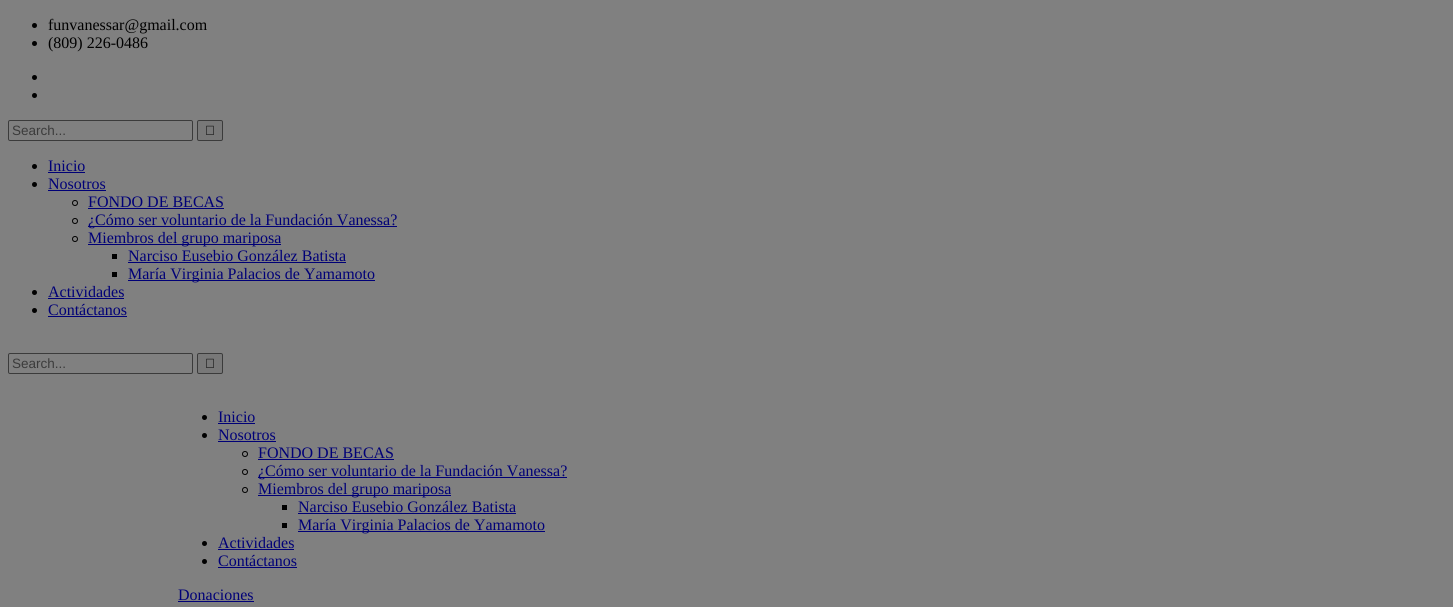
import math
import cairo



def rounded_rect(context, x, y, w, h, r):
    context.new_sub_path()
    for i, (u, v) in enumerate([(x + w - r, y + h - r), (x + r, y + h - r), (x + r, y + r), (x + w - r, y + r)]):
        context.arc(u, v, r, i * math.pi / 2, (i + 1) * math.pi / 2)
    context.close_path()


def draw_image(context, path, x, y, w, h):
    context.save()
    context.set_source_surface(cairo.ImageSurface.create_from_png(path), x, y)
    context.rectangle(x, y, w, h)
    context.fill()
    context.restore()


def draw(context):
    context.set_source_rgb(128 / 255, 128 / 255, 128 / 255)
    context.paint()
    context.set_source_rgb(0, 0, 0)
    context.arc(34.5, 25.5, 2.5, 0, 2 * math.pi)
    context.fill()
    context.arc(34.5, 43.5, 2.5, 0, 2 * math.pi)
    context.fill()
    context.arc(34.5, 77.5, 2.5, 0, 2 * math.pi)
    context.fill()
    context.arc(34.5, 95.5, 2.5, 0, 2 * math.pi)
    context.fill()
    rounded_rect(context, 8.5, 120.5, 184, 20, 1.5)
    context.set_source_rgb(59 / 255, 59 / 255, 59 / 255)
    context.set_line_width(1)
    context.stroke()
    context.set_source_rgb(120 / 255, 120 / 255, 120 / 255)
    rounded_rect(context, 197.5, 120.5, 25, 20, 1.5)
    context.fill_preserve()
    context.set_source_rgb(59 / 255, 59 / 255, 59 / 255)
    context.stroke()
    draw_image(context, "images/1.png", 206, 125, 8, 10)
    context.set_source_rgb(0, 0, 0)
    context.arc(34.5, 166.5, 2.5, 0, 2 * math.pi)
    context.fill()
    context.set_source_rgb(0, 0, 119 / 255)
    context.rectangle(48, 172, 37, 1)
    context.fill()
    context.set_source_rgb(0, 0, 0)
    context.arc(34.5, 184.5, 2.5, 0, 2 * math.pi)
    context.fill()
    context.set_source_rgb(0, 0, 119 / 255)
    context.rectangle(48, 190, 58, 1)
    context.fill()
    context.arc(75, 203, 2.5, 0, 2 * math.pi)
    context.set_source_rgb(0, 0, 0)
    context.stroke()
    context.set_source_rgb(0, 0, 119 / 255)
    context.rectangle(88, 208, 136, 1)
    context.fill()
    context.arc(75, 221, 2.5, 0, 2 * math.pi)
    context.set_source_rgb(0, 0, 0)
    context.stroke()
    context.set_source_rgb(0, 0, 119 / 255)
    context.rectangle(88, 226, 309, 1)
    context.fill()
    context.arc(75, 239, 2.5, 0, 2 * math.pi)
    context.set_source_rgb(0, 0, 0)
    context.stroke()
    context.set_source_rgb(0, 0, 119 / 255)
    context.rectangle(88, 244, 193, 1)
    context.fill()
    context.set_source_rgb(0, 0, 0)
    context.rectangle(112, 254, 5, 5)
    context.fill()
    context.set_source_rgb(0, 0, 119 / 255)
    context.rectangle(128, 262, 218, 1)
    context.fill()
    context.set_source_rgb(0, 0, 0)
    context.rectangle(112, 272, 5, 5)
    context.fill()
    context.set_source_rgb(0, 0, 119 / 255)
    context.rectangle(128, 280, 247, 1)
    context.fill()
    context.set_source_rgb(0, 0, 0)
    context.arc(34.5, 292.5, 2.5, 0, 2 * math.pi)
    context.fill()
    context.set_source_rgb(0, 0, 119 / 255)
    context.rectangle(48, 298, 76, 1)
    context.fill()
    context.set_source_rgb(0, 0, 0)
    context.arc(34.5, 310.5, 2.5, 0, 2 * math.pi)
    context.fill()
    context.set_source_rgb(0, 0, 119 / 255)
    context.rectangle(48, 316, 79, 1)
    context.fill()
    rounded_rect(context, 8.5, 353.5, 184, 20, 1.5)
    context.set_source_rgb(59 / 255, 59 / 255, 59 / 255)
    context.stroke()
    context.set_source_rgb(120 / 255, 120 / 255, 120 / 255)
    rounded_rect(context, 197.5, 353.5, 25, 20, 1.5)
    context.fill_preserve()
    context.set_source_rgb(59 / 255, 59 / 255, 59 / 255)
    context.stroke()
    draw_image(context, "images/1.png", 206, 358, 8, 10)
    context.set_source_rgb(0, 0, 0)
    context.arc(204.5, 417.5, 2.5, 0, 2 * math.pi)
    context.fill()
    context.set_source_rgb(0, 0, 119 / 255)
    context.rectangle(218, 423, 37, 1)
    context.fill()
    context.set_source_rgb(0, 0, 0)
    context.arc(204.5, 435.5, 2.5, 0, 2 * math.pi)
    context.fill()
    context.set_source_rgb(0, 0, 119 / 255)
    context.rectangle(218, 441, 58, 1)
    context.fill()
    context.arc(245, 454, 2.5, 0, 2 * math.pi)
    context.set_source_rgb(0, 0, 0)
    context.stroke()
    context.set_source_rgb(0, 0, 119 / 255)
    context.rectangle(258, 459, 136, 1)
    context.fill()
    context.arc(245, 472, 2.5, 0, 2 * math.pi)
    context.set_source_rgb(0, 0, 0)
    context.stroke()
    context.set_source_rgb(0, 0, 119 / 255)
    context.rectangle(258, 477, 309, 1)
    context.fill()
    context.arc(245, 490, 2.5, 0, 2 * math.pi)
    context.set_source_rgb(0, 0, 0)
    context.stroke()
    context.set_source_rgb(0, 0, 119 / 255)
    context.rectangle(258, 495, 193, 1)
    context.fill()
    context.set_source_rgb(0, 0, 0)
    context.rectangle(282, 505, 5, 5)
    context.fill()
    context.set_source_rgb(0, 0, 119 / 255)
    context.rectangle(298, 513, 218, 1)
    context.fill()
    context.set_source_rgb(0, 0, 0)
    context.rectangle(282, 523, 5, 5)
    context.fill()
    context.set_source_rgb(0, 0, 119 / 255)
    context.rectangle(298, 531, 247, 1)
    context.fill()
    context.set_source_rgb(0, 0, 0)
    context.arc(204.5, 543.5, 2.5, 0, 2 * math.pi)
    context.fill()
    context.set_source_rgb(0, 0, 119 / 255)
    context.rectangle(218, 549, 76, 1)
    context.fill()
    context.set_source_rgb(0, 0, 0)
    context.arc(204.5, 561.5, 2.5, 0, 2 * math.pi)
    context.fill()
    context.set_source_rgb(0, 0, 119 / 255)
    context.rectangle(218, 567, 79, 1)
    context.fill()
    context.rectangle(178, 601, 76, 1)
    context.fill()
    context.select_font_face("Liberation Serif")
    context.set_font_size(16)
    context.set_source_rgb(0, 0, 0)
    context.move_to(48, 30)
    context.show_text("funvanessar@gmail.com")
    context.move_to(48, 48)
    context.show_text("(809) 226-0486")
    context.select_font_face("Liberation Sans")
    context.set_font_size(13.5)
    context.set_source_rgb(59 / 255, 59 / 255, 59 / 255)
    context.move_to(12, 135)
    context.show_text("Search...")
    context.select_font_face("Liberation Serif")
    context.set_font_size(16)
    context.set_source_rgb(0, 0, 119 / 255)
    context.move_to(48, 171)
    context.show_text("Inicio")
    context.move_to(48, 189)
    context.show_text("Nosotros")
    context.move_to(88, 207)
    context.show_text("FONDO DE BECAS")
    context.move_to(88, 225)
    context.show_text("¿Cómo ser voluntario de la Fundación Vanessa?")
    context.move_to(88, 243)
    context.show_text("Miembros del grupo mariposa")
    context.move_to(128, 261)
    context.show_text("Narciso Eusebio González Batista")
    context.move_to(128, 279)
    context.show_text("María Virginia Palacios de Yamamoto")
    context.move_to(48, 297)
    context.show_text("Actividades")
    context.move_to(48, 315)
    context.show_text("Contáctanos")
    context.select_font_face("Liberation Sans")
    context.set_font_size(13.5)
    context.set_source_rgb(59 / 255, 59 / 255, 59 / 255)
    context.move_to(12, 368)
    context.show_text("Search...")
    context.select_font_face("Liberation Serif")
    context.set_font_size(16)
    context.set_source_rgb(0, 0, 119 / 255)
    context.move_to(218, 422)
    context.show_text("Inicio")
    context.move_to(218, 440)
    context.show_text("Nosotros")
    context.move_to(258, 458)
    context.show_text("FONDO DE BECAS")
    context.move_to(258, 476)
    context.show_text("¿Cómo ser voluntario de la Fundación Vanessa?")
    context.move_to(258, 494)
    context.show_text("Miembros del grupo mariposa")
    context.move_to(298, 512)
    context.show_text("Narciso Eusebio González Batista")
    context.move_to(298, 530)
    context.show_text("María Virginia Palacios de Yamamoto")
    context.move_to(218, 548)
    context.show_text("Actividades")
    context.move_to(218, 566)
    context.show_text("Contáctanos")
    context.move_to(178, 600)
    context.show_text("Donaciones")


surface = cairo.ImageSurface(cairo.Format.RGB24, 1453, 607)
context = cairo.Context(surface)
options = cairo.FontOptions()
options.set_hint_metrics(cairo.HintMetrics.OFF)
options.set_hint_style(cairo.HintStyle.NONE)
context.set_font_options(options)
context.set_miter_limit(4)
draw(context)
surface.write_to_png("out.png")
